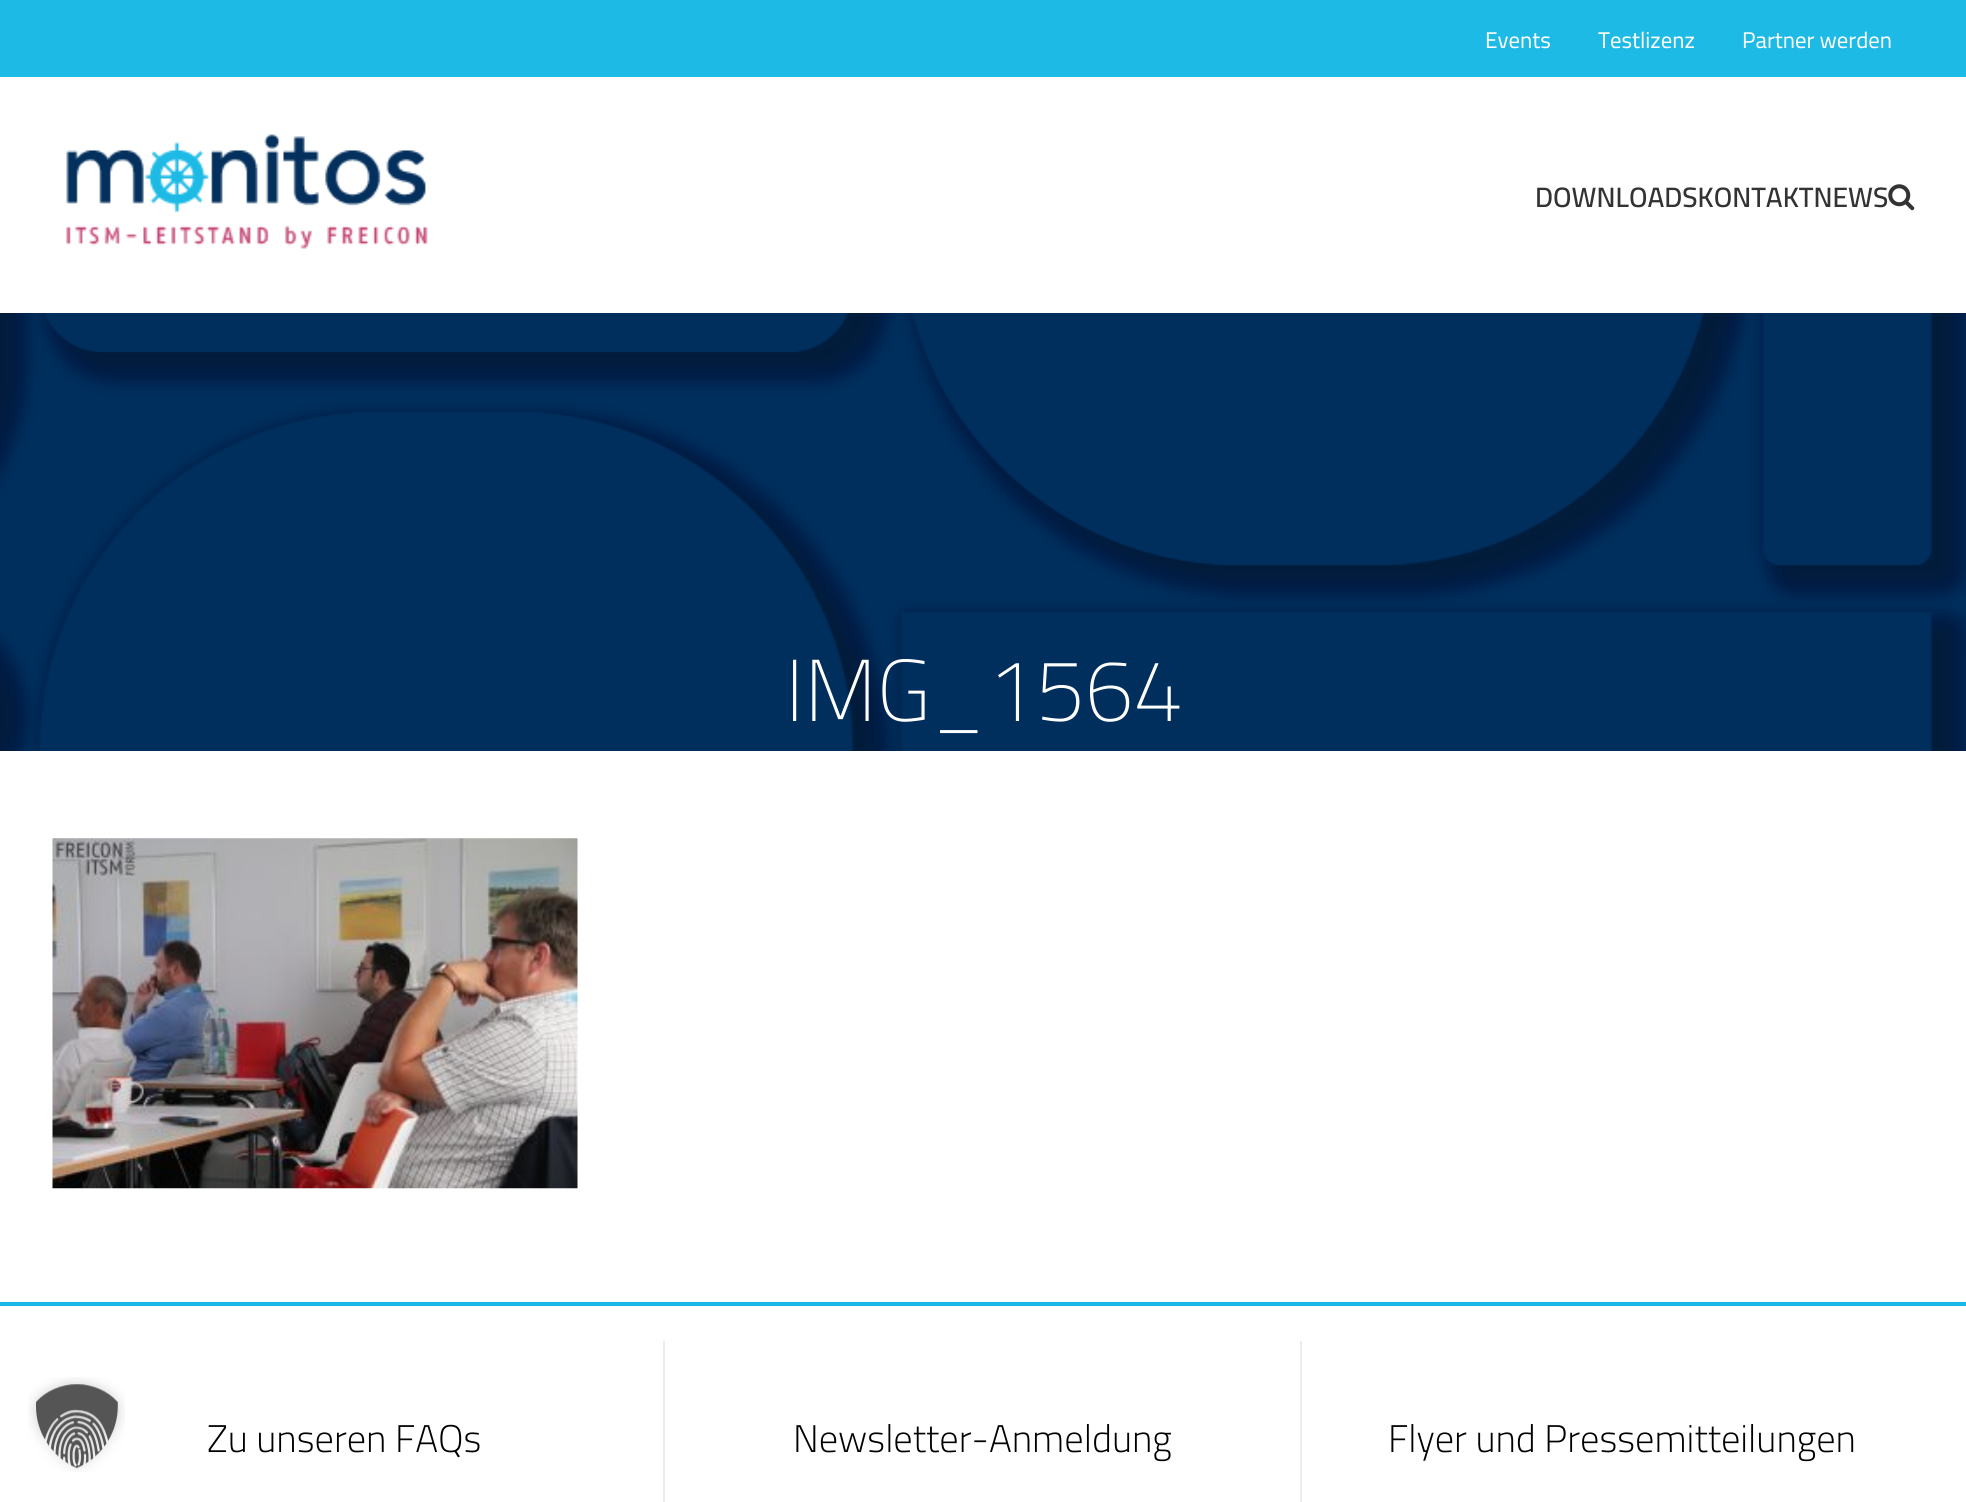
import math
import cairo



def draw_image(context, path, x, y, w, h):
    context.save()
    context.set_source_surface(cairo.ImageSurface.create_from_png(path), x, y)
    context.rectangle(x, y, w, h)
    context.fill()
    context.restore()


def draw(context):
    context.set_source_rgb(1, 1, 1)
    context.paint()
    draw_image(context, "images/1.png", 28, 1377, 97, 95)
    context.set_source_rgb(30 / 255, 186 / 255, 230 / 255)
    context.rectangle(0, 0, 1966, 77)
    context.fill()
    draw_image(context, "images/2.png", 66, 134, 362, 115)
    draw_image(context, "images/3.png", 1888, 184, 27, 27)
    draw_image(context, "images/4.png", 0, 313, 1966, 438)
    draw_image(context, "images/5.png", 52, 838, 526, 351)
    context.set_source_rgb(21 / 255, 186 / 255, 230 / 255)
    context.rectangle(0, 1302, 1966, 4)
    context.fill()
    context.set_source_rgb(237 / 255, 237 / 255, 237 / 255)
    context.rectangle(663, 1341, 2, 161)
    context.fill()
    context.rectangle(1300, 1341, 2, 161)
    context.fill()
    context.select_font_face("Cairo")
    context.set_font_size(22.75)
    context.set_source_rgb(1, 1, 1)
    context.move_to(1485, 48)
    context.show_text("Events")
    context.move_to(1598, 48)
    context.show_text("Testlizenz")
    context.move_to(1742, 48)
    context.show_text("Partner werden")
    context.select_font_face("Cairo SemiBold")
    context.set_font_size(28)
    context.set_source_rgb(51 / 255, 51 / 255, 51 / 255)
    context.move_to(1535, 207)
    context.show_text("DOWNLOADSKONTAKTNEWS")
    context.select_font_face("Cairo ExtraLight")
    context.set_font_size(87.5)
    context.set_source_rgb(1, 1, 1)
    context.move_to(785, 721)
    context.show_text("IMG_1564")
    context.select_font_face("Cairo Light")
    context.set_font_size(38.5)
    context.set_source_rgb(0, 0, 0)
    context.move_to(207, 1452)
    context.show_text("Zu unseren FAQs")
    context.move_to(793, 1452)
    context.show_text("Newsletter-Anmeldung")
    context.move_to(1388, 1452)
    context.show_text("Flyer und Pressemitteilungen")


surface = cairo.ImageSurface(cairo.Format.RGB24, 1966, 1502)
context = cairo.Context(surface)
options = cairo.FontOptions()
options.set_hint_metrics(cairo.HintMetrics.OFF)
options.set_hint_style(cairo.HintStyle.NONE)
context.set_font_options(options)
context.set_miter_limit(4)
draw(context)
surface.write_to_png("out.png")
